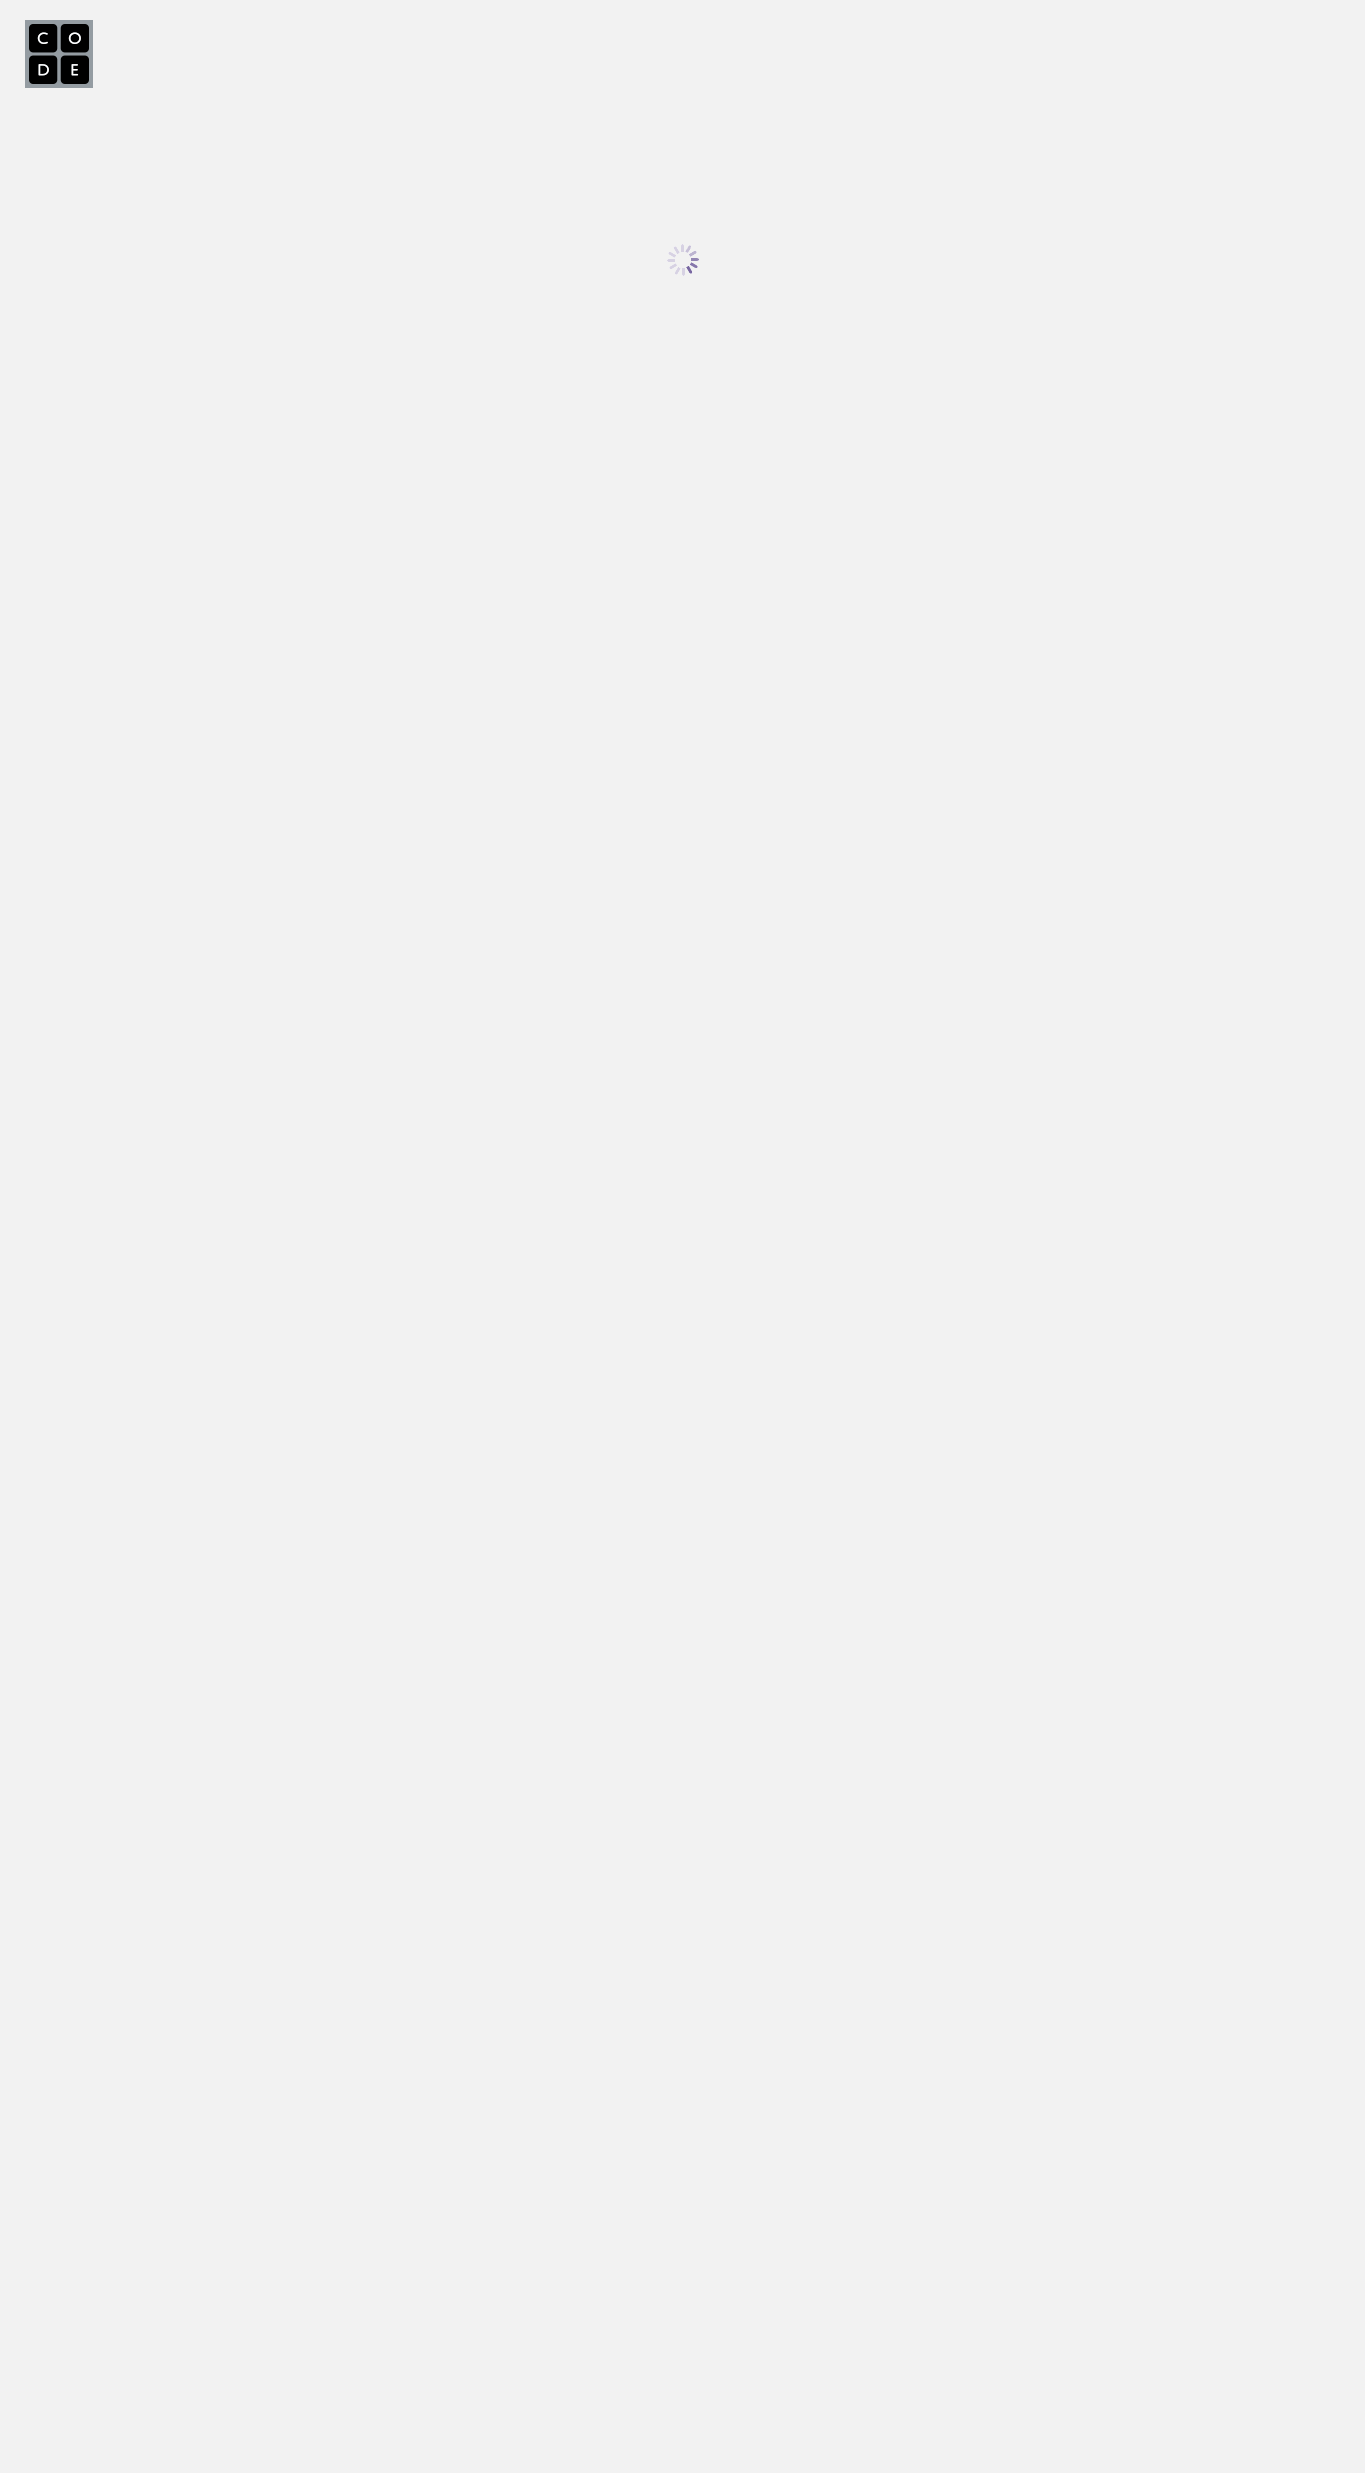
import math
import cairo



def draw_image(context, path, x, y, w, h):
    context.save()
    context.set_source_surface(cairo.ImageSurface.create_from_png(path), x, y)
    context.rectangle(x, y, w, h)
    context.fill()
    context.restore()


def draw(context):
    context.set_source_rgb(242 / 255, 242 / 255, 242 / 255)
    context.paint()
    context.set_source_rgb(148 / 255, 156 / 255, 162 / 255)
    context.rectangle(25, 20, 68, 68)
    context.fill()
    draw_image(context, "images/1.png", 29, 24, 60, 60)
    draw_image(context, "images/2.png", 667, 244, 32, 32)


surface = cairo.ImageSurface(cairo.Format.RGB24, 1365, 2473)
context = cairo.Context(surface)
options = cairo.FontOptions()
options.set_hint_metrics(cairo.HintMetrics.OFF)
options.set_hint_style(cairo.HintStyle.NONE)
context.set_font_options(options)
context.set_miter_limit(4)
draw(context)
surface.write_to_png("out.png")
